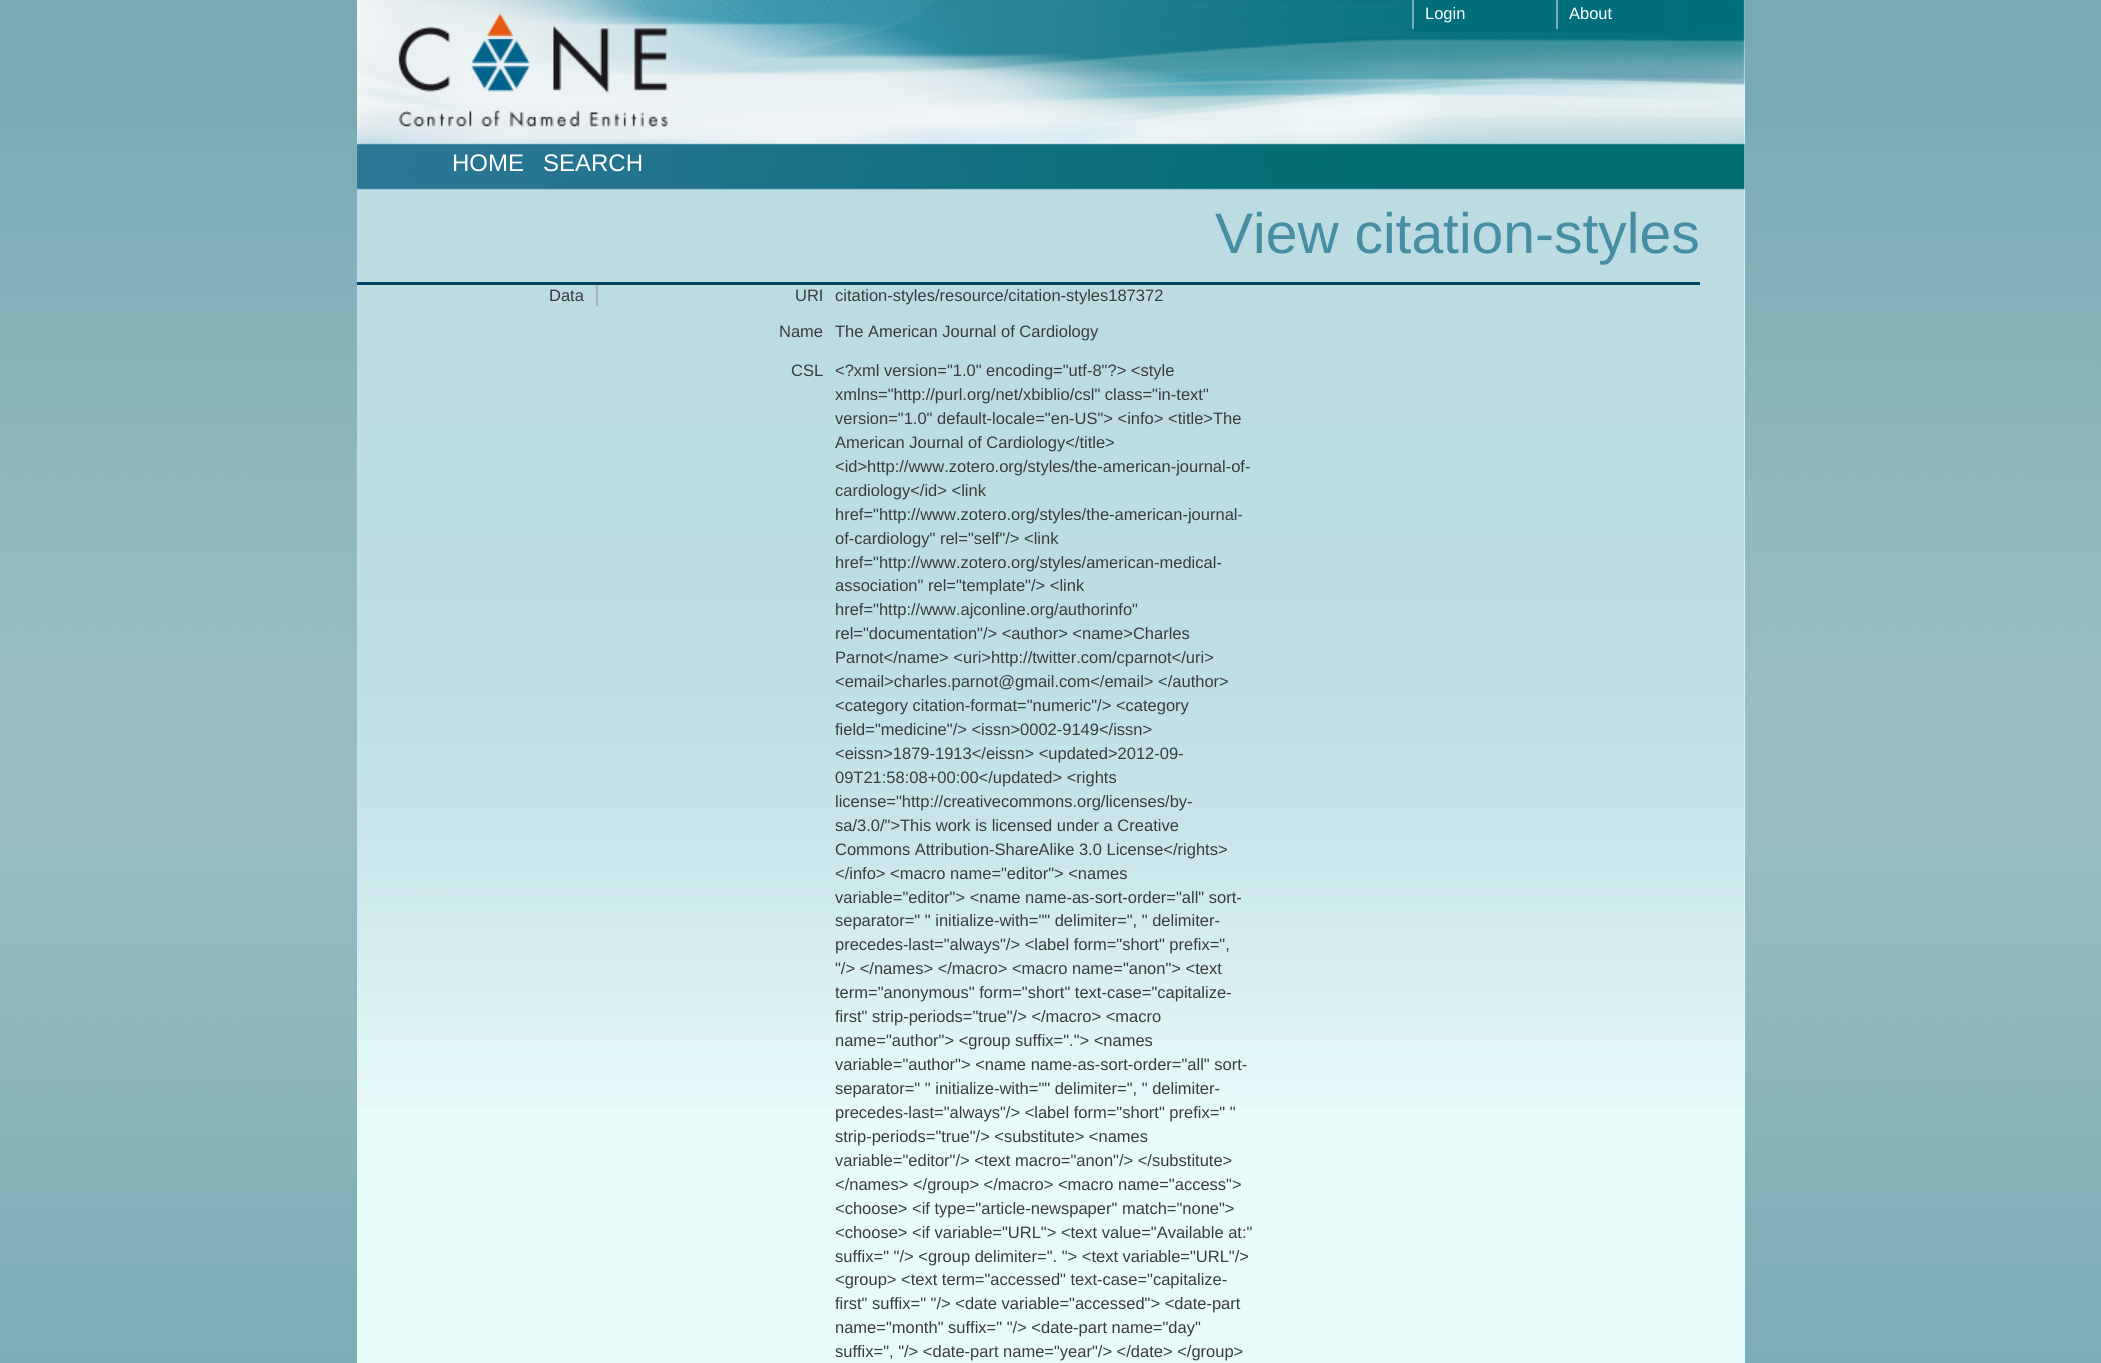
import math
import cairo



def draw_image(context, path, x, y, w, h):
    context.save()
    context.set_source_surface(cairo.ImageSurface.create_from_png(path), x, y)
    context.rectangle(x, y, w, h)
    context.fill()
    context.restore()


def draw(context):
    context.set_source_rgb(120 / 255, 170 / 255, 179 / 255)
    context.paint()
    draw_image(context, "images/1.png", 0, 129, 2101, 1234)
    context.set_source_rgb(232 / 255, 251 / 255, 251 / 255)
    context.rectangle(357, 0, 1388, 1363)
    context.fill()
    draw_image(context, "images/2.png", 357, 0, 1388, 1106)
    draw_image(context, "images/3.png", 398, 13, 270, 115)
    context.set_source_rgb(0, 111 / 255, 123 / 255)
    context.rectangle(1413, 0, 143, 32)
    context.fill()
    context.set_source_rgb(124 / 255, 173 / 255, 180 / 255)
    context.rectangle(1412, 0, 2, 29)
    context.fill()
    context.set_source_rgb(0, 111 / 255, 123 / 255)
    context.rectangle(1557, 0, 107, 32)
    context.fill()
    context.set_source_rgb(124 / 255, 173 / 255, 180 / 255)
    context.rectangle(1556, 0, 2, 29)
    context.fill()
    context.set_source_rgb(0, 68 / 255, 101 / 255)
    context.rectangle(357, 282, 1343, 3)
    context.fill()
    context.set_source_rgb(176 / 255, 177 / 255, 177 / 255)
    context.rectangle(596, 285, 2, 21)
    context.fill()
    context.select_font_face("Liberation Sans")
    context.set_font_size(16.5)
    context.set_source_rgb(1, 1, 1)
    context.move_to(1425, 19)
    context.show_text("Login")
    context.move_to(1569, 19)
    context.show_text("About")
    context.set_font_size(24)
    context.move_to(452, 171)
    context.show_text("HOME")
    context.move_to(543, 171)
    context.show_text("SEARCH")
    context.set_font_size(57)
    context.set_source_rgb(70 / 255, 142 / 255, 162 / 255)
    context.move_to(1215, 253)
    context.show_text("View citation-styles")
    context.set_font_size(16.5)
    context.set_source_rgb(58 / 255, 59 / 255, 59 / 255)
    context.move_to(549, 301)
    context.show_text("Data")
    context.move_to(795, 301)
    context.show_text("URI")
    context.move_to(835, 301)
    context.show_text("citation-styles/resource/citation-styles187372")
    context.move_to(779, 337)
    context.show_text("Name")
    context.move_to(835, 337)
    context.show_text("The American Journal of Cardiology")
    context.move_to(791, 376)
    context.show_text("CSL")
    context.move_to(835, 376)
    context.show_text("<?xml version=\"1.0\" encoding=\"utf-8\"?> <style")
    context.move_to(835, 400)
    context.show_text("xmlns=\"http://purl.org/net/xbiblio/csl\" class=\"in-text\"")
    context.move_to(835, 424)
    context.show_text("version=\"1.0\" default-locale=\"en-US\"> <info> <title>The")
    context.move_to(835, 448)
    context.show_text("American Journal of Cardiology</title>")
    context.move_to(835, 472)
    context.show_text("<id>http://www.zotero.org/styles/the-american-journal-of-")
    context.move_to(835, 496)
    context.show_text("cardiology</id> <link")
    context.move_to(835, 520)
    context.show_text("href=\"http://www.zotero.org/styles/the-american-journal-")
    context.move_to(835, 544)
    context.show_text("of-cardiology\" rel=\"self\"/> <link")
    context.move_to(835, 568)
    context.show_text("href=\"http://www.zotero.org/styles/american-medical-")
    context.move_to(835, 591)
    context.show_text("association\" rel=\"template\"/> <link")
    context.move_to(835, 615)
    context.show_text("href=\"http://www.ajconline.org/authorinfo\"")
    context.move_to(835, 639)
    context.show_text("rel=\"documentation\"/> <author> <name>Charles")
    context.move_to(835, 663)
    context.show_text("Parnot</name> <uri>http://twitter.com/cparnot</uri>")
    context.move_to(835, 687)
    context.show_text("<email>charles.parnot@gmail.com</email> </author>")
    context.move_to(835, 711)
    context.show_text("<category citation-format=\"numeric\"/> <category")
    context.move_to(835, 735)
    context.show_text("field=\"medicine\"/> <issn>0002-9149</issn>")
    context.move_to(835, 759)
    context.show_text("<eissn>1879-1913</eissn> <updated>2012-09-")
    context.move_to(835, 783)
    context.show_text("09T21:58:08+00:00</updated> <rights")
    context.move_to(835, 807)
    context.show_text("license=\"http://creativecommons.org/licenses/by-")
    context.move_to(835, 831)
    context.show_text("sa/3.0/\">This work is licensed under a Creative")
    context.move_to(835, 855)
    context.show_text("Commons Attribution-ShareAlike 3.0 License</rights>")
    context.move_to(835, 879)
    context.show_text("</info> <macro name=\"editor\"> <names")
    context.move_to(835, 903)
    context.show_text("variable=\"editor\"> <name name-as-sort-order=\"all\" sort-")
    context.move_to(835, 926)
    context.show_text("separator=\" \" initialize-with=\"\" delimiter=\", \" delimiter-")
    context.move_to(835, 950)
    context.show_text("precedes-last=\"always\"/> <label form=\"short\" prefix=\",")
    context.move_to(835, 974)
    context.show_text("\"/> </names> </macro> <macro name=\"anon\"> <text")
    context.move_to(835, 998)
    context.show_text("term=\"anonymous\" form=\"short\" text-case=\"capitalize-")
    context.move_to(835, 1022)
    context.show_text("first\" strip-periods=\"true\"/> </macro> <macro")
    context.move_to(835, 1046)
    context.show_text("name=\"author\"> <group suffix=\".\"> <names")
    context.move_to(835, 1070)
    context.show_text("variable=\"author\"> <name name-as-sort-order=\"all\" sort-")
    context.move_to(835, 1094)
    context.show_text("separator=\" \" initialize-with=\"\" delimiter=\", \" delimiter-")
    context.move_to(835, 1118)
    context.show_text("precedes-last=\"always\"/> <label form=\"short\" prefix=\" \"")
    context.move_to(835, 1142)
    context.show_text("strip-periods=\"true\"/> <substitute> <names")
    context.move_to(835, 1166)
    context.show_text("variable=\"editor\"/> <text macro=\"anon\"/> </substitute>")
    context.move_to(835, 1190)
    context.show_text("</names> </group> </macro> <macro name=\"access\">")
    context.move_to(835, 1214)
    context.show_text("<choose> <if type=\"article-newspaper\" match=\"none\">")
    context.move_to(835, 1238)
    context.show_text("<choose> <if variable=\"URL\"> <text value=\"Available at:\"")
    context.move_to(835, 1262)
    context.show_text("suffix=\" \"/> <group delimiter=\". \"> <text variable=\"URL\"/>")
    context.move_to(835, 1285)
    context.show_text("<group> <text term=\"accessed\" text-case=\"capitalize-")
    context.move_to(835, 1309)
    context.show_text("first\" suffix=\" \"/> <date variable=\"accessed\"> <date-part")
    context.move_to(835, 1333)
    context.show_text("name=\"month\" suffix=\" \"/> <date-part name=\"day\"")
    context.move_to(835, 1357)
    context.show_text("suffix=\", \"/> <date-part name=\"year\"/> </date> </group>")


surface = cairo.ImageSurface(cairo.Format.RGB24, 2101, 1363)
context = cairo.Context(surface)
options = cairo.FontOptions()
options.set_hint_metrics(cairo.HintMetrics.OFF)
options.set_hint_style(cairo.HintStyle.NONE)
context.set_font_options(options)
context.set_miter_limit(4)
draw(context)
surface.write_to_png("out.png")
